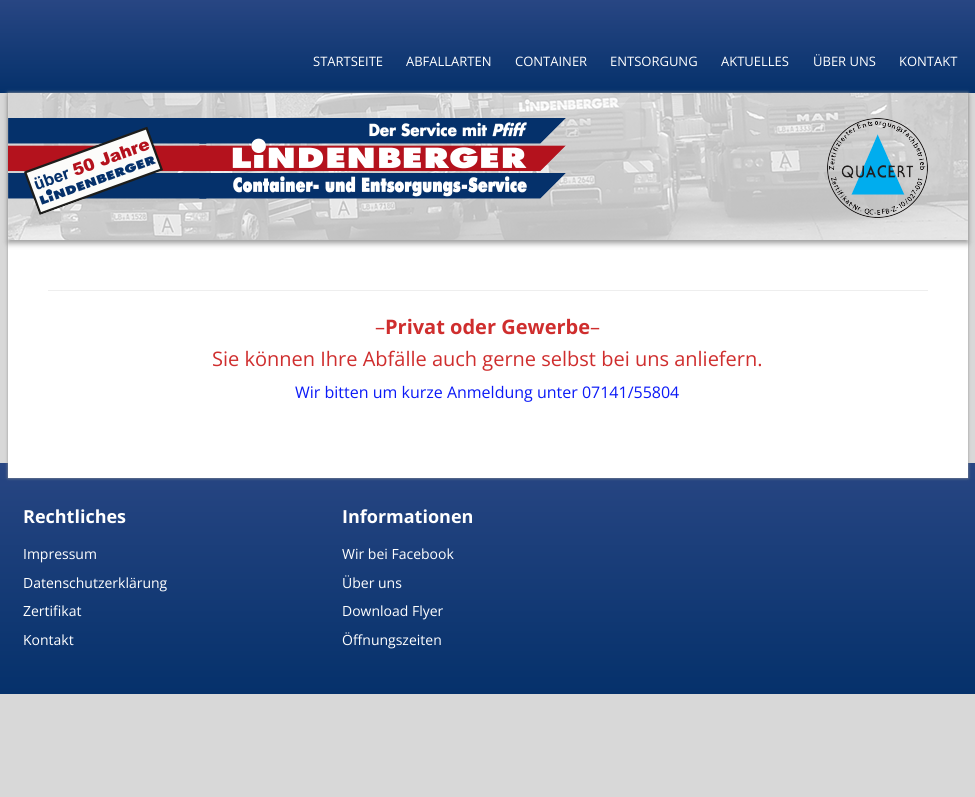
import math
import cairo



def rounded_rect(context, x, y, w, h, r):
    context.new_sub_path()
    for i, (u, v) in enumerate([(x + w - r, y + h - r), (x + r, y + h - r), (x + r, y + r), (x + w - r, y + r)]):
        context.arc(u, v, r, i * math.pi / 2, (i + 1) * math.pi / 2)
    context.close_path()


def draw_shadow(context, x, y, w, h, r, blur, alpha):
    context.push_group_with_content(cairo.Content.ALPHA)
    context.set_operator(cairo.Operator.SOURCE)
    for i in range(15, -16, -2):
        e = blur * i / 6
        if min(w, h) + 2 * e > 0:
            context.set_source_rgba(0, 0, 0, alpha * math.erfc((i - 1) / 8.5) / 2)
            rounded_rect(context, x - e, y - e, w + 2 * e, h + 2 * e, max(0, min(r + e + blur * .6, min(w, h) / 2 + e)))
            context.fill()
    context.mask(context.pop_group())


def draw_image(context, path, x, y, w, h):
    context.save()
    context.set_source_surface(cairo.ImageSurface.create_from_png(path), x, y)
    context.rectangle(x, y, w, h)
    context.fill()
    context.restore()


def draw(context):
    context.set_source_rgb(216 / 255, 216 / 255, 216 / 255)
    context.paint()
    gradient = cairo.LinearGradient(488, 93, 488, 0)
    gradient.add_color_stop_rgba(0, 5 / 255, 49 / 255, 107 / 255, 1)
    gradient.add_color_stop_rgba(1, 40 / 255, 70 / 255, 131 / 255, 1)
    context.set_source(gradient)
    context.rectangle(0, 0, 975, 93)
    context.fill()
    gradient = cairo.LinearGradient(488, 694, 488, 463)
    gradient.add_color_stop_rgba(0, 5 / 255, 49 / 255, 107 / 255, 1)
    gradient.add_color_stop_rgba(1, 40 / 255, 70 / 255, 131 / 255, 1)
    context.set_source(gradient)
    context.rectangle(0, 463, 975, 231)
    context.fill()
    context.set_source_rgb(150 / 255, 150 / 255, 150 / 255)
    draw_shadow(context, 8, 93, 960, 385, 0, 1.5, 1)
    context.set_source_rgb(1, 1, 1)
    context.rectangle(8, 240, 960, 238)
    context.fill()
    context.set_source_rgb(150 / 255, 150 / 255, 150 / 255)
    draw_shadow(context, 8, 96, 960, 147, 0, 3, 1)
    draw_image(context, "images/1.png", 8, 93, 960, 147)
    draw_image(context, "images/2.png", 8, 118, 558, 97)
    draw_image(context, "images/3.png", 827, 118, 101, 100)
    context.set_source_rgb(238 / 255, 238 / 255, 238 / 255)
    context.rectangle(48, 290, 880, 1)
    context.fill()
    context.select_font_face("Open Sans")
    context.set_font_size(13)
    context.set_source_rgb(1, 1, 1)
    context.move_to(313, 66)
    context.show_text("STARTSEITE")
    context.move_to(406, 66)
    context.show_text("ABFALLARTEN")
    context.move_to(515, 66)
    context.show_text("CONTAINER")
    context.move_to(610, 66)
    context.show_text("ENTSORGUNG")
    context.move_to(721, 66)
    context.show_text("AKTUELLES")
    context.move_to(813, 66)
    context.show_text("ÜBER UNS")
    context.move_to(899, 66)
    context.show_text("KONTAKT")
    context.set_font_size(20)
    context.set_source_rgb(207 / 255, 46 / 255, 46 / 255)
    context.move_to(375, 334)
    context.show_text("–")
    context.select_font_face("Open Sans", cairo.FontSlant.NORMAL, cairo.FontWeight.BOLD)
    context.move_to(385, 334)
    context.show_text("Privat oder Gewerbe")
    context.select_font_face("Open Sans")
    context.move_to(590, 334)
    context.show_text("–")
    context.move_to(212, 366)
    context.show_text("Sie können Ihre Abfälle auch gerne selbst bei uns anliefern.")
    context.set_font_size(16)
    context.set_source_rgb(11 / 255, 26 / 255, 247 / 255)
    context.move_to(295, 398)
    context.show_text("Wir bitten um kurze Anmeldung unter 07141/55804")
    context.select_font_face("Open Sans", cairo.FontSlant.NORMAL, cairo.FontWeight.BOLD)
    context.set_font_size(18)
    context.set_source_rgb(1, 1, 1)
    context.move_to(23, 523)
    context.show_text("Rechtliches")
    context.select_font_face("Open Sans")
    context.set_font_size(14)
    context.move_to(23, 559)
    context.show_text("Impressum")
    context.move_to(23, 588)
    context.show_text("Datenschutzerklärung")
    context.move_to(23, 616)
    context.show_text("Zertifikat")
    context.move_to(23, 645)
    context.show_text("Kontakt")
    context.select_font_face("Open Sans", cairo.FontSlant.NORMAL, cairo.FontWeight.BOLD)
    context.set_font_size(18)
    context.move_to(342, 523)
    context.show_text("Informationen")
    context.select_font_face("Open Sans")
    context.set_font_size(14)
    context.move_to(342, 559)
    context.show_text("Wir bei Facebook")
    context.move_to(342, 588)
    context.show_text("Über uns")
    context.move_to(342, 616)
    context.show_text("Download Flyer")
    context.move_to(342, 645)
    context.show_text("Öffnungszeiten")


surface = cairo.ImageSurface(cairo.Format.RGB24, 975, 797)
context = cairo.Context(surface)
options = cairo.FontOptions()
options.set_hint_metrics(cairo.HintMetrics.OFF)
options.set_hint_style(cairo.HintStyle.NONE)
context.set_font_options(options)
context.set_miter_limit(4)
draw(context)
surface.write_to_png("out.png")
